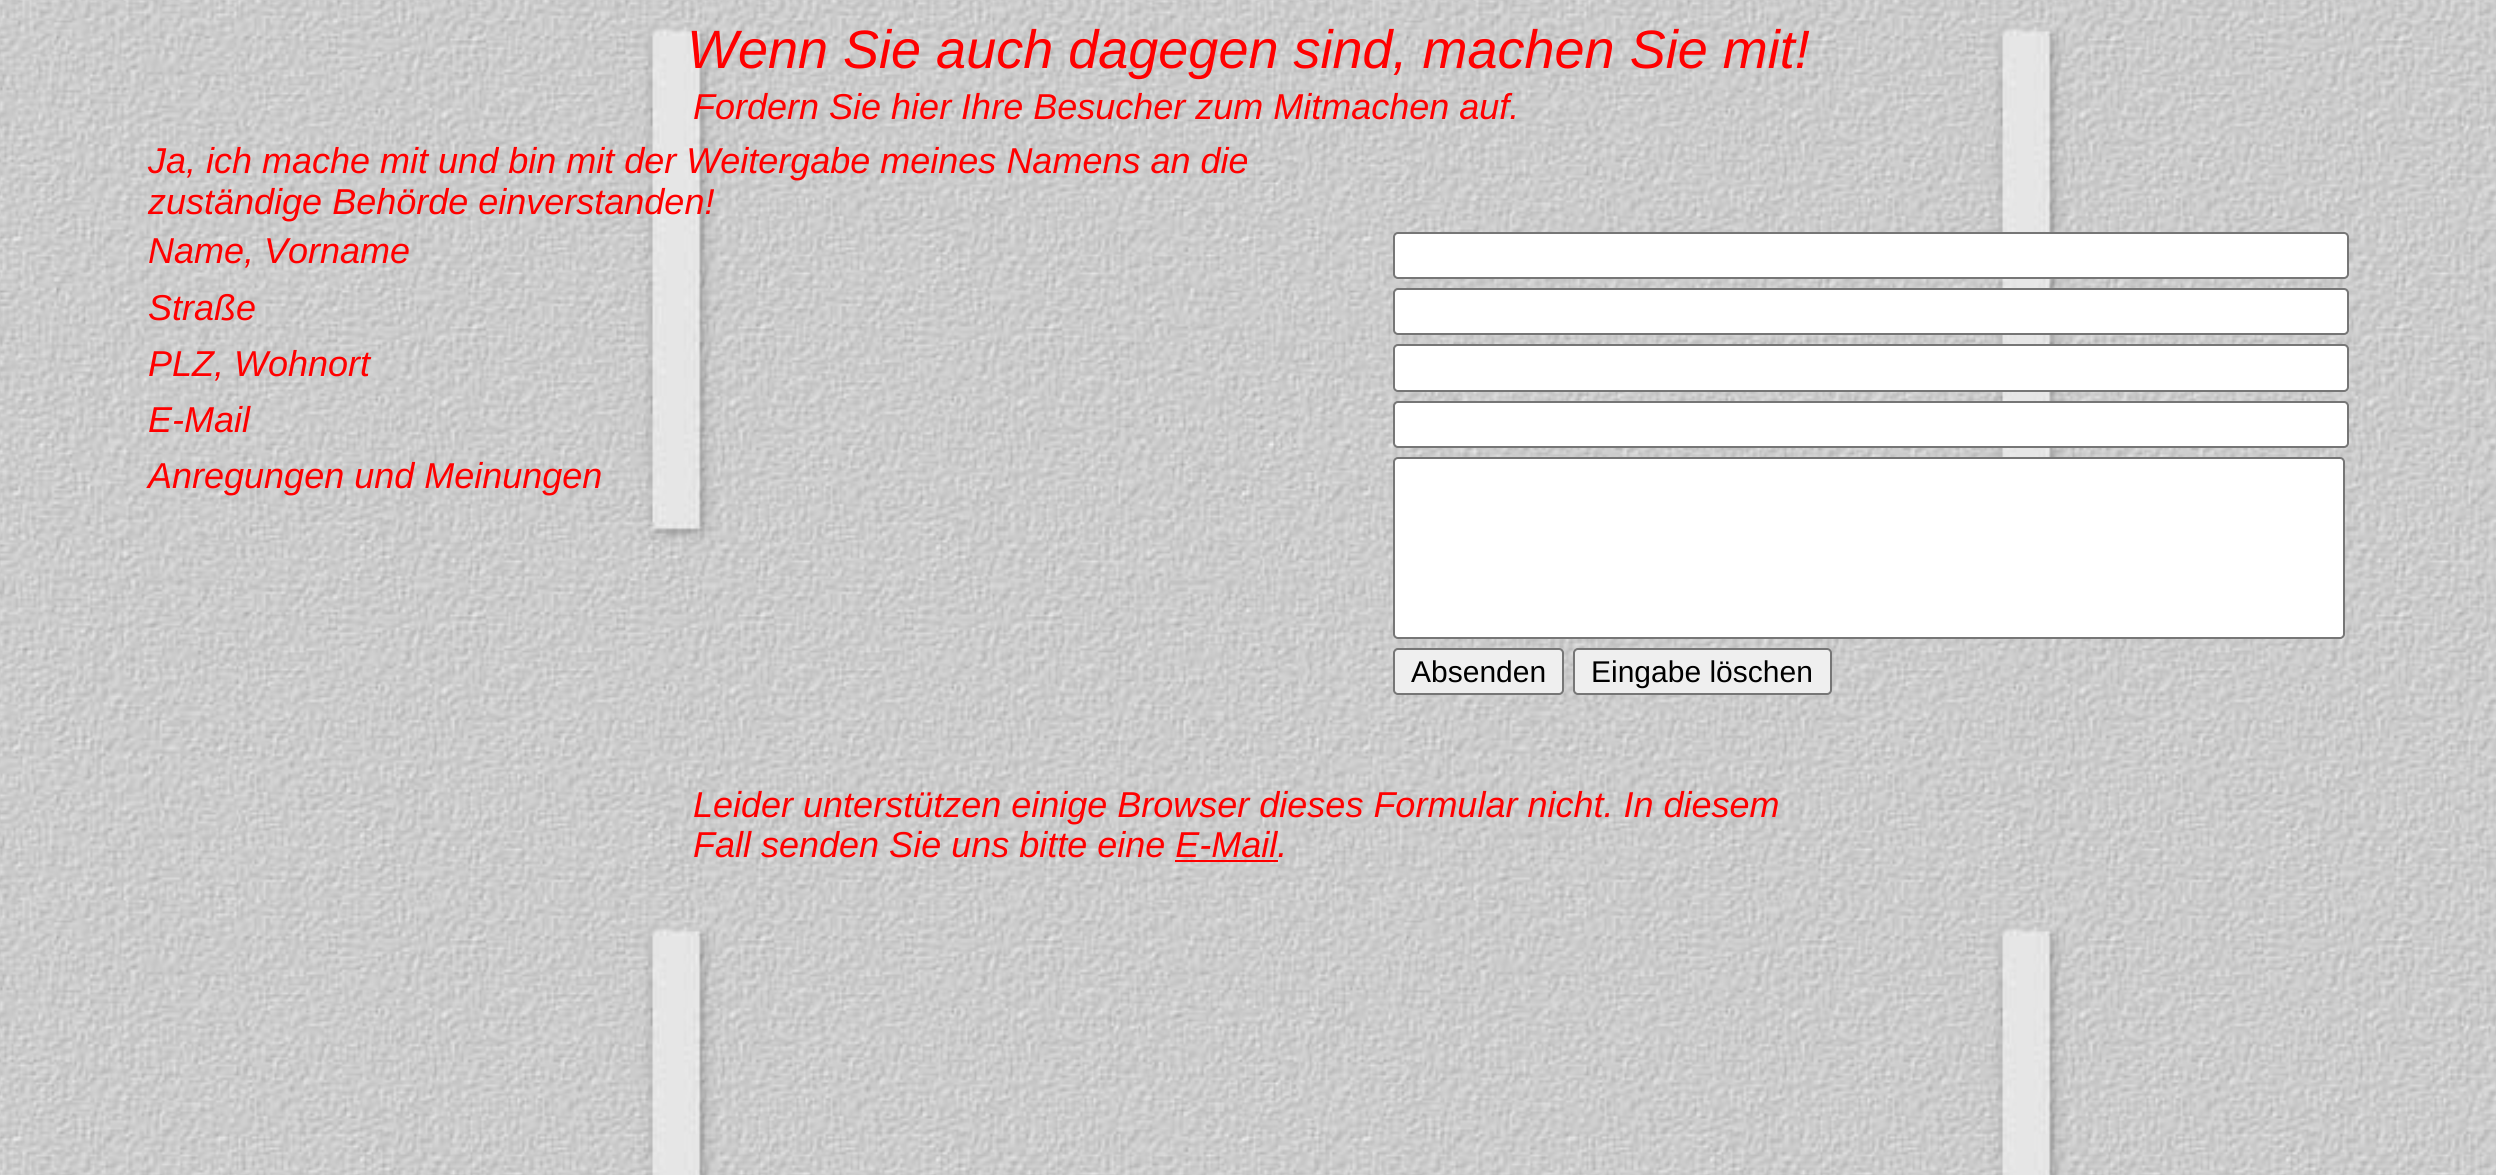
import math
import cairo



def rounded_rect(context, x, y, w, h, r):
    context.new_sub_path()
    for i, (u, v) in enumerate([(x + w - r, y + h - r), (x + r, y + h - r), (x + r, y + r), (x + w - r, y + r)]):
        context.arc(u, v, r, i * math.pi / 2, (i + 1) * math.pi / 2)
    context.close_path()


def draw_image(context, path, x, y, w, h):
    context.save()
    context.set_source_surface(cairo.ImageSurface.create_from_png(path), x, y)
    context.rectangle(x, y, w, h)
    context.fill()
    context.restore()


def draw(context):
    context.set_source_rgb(1, 1, 1)
    context.paint()
    draw_image(context, "images/1.png", 0, 0, 2496, 1175)
    context.set_source_rgb(1, 1, 1)
    rounded_rect(context, 1394, 233, 954, 45, 4)
    context.fill_preserve()
    context.set_source_rgb(118 / 255, 118 / 255, 118 / 255)
    context.stroke()
    context.set_source_rgb(1, 1, 1)
    rounded_rect(context, 1394, 289, 954, 45, 4)
    context.fill_preserve()
    context.set_source_rgb(118 / 255, 118 / 255, 118 / 255)
    context.stroke()
    context.set_source_rgb(1, 1, 1)
    rounded_rect(context, 1394, 345, 954, 46, 4)
    context.fill_preserve()
    context.set_source_rgb(118 / 255, 118 / 255, 118 / 255)
    context.stroke()
    context.set_source_rgb(1, 1, 1)
    rounded_rect(context, 1394, 402, 954, 45, 4)
    context.fill_preserve()
    context.set_source_rgb(118 / 255, 118 / 255, 118 / 255)
    context.stroke()
    context.set_source_rgb(1, 1, 1)
    rounded_rect(context, 1394, 458, 950, 180, 4)
    context.fill_preserve()
    context.set_source_rgb(118 / 255, 118 / 255, 118 / 255)
    context.stroke()
    context.set_source_rgb(239 / 255, 239 / 255, 239 / 255)
    rounded_rect(context, 1394, 649, 169, 45, 4)
    context.fill_preserve()
    context.set_source_rgb(118 / 255, 118 / 255, 118 / 255)
    context.stroke()
    context.set_source_rgb(239 / 255, 239 / 255, 239 / 255)
    rounded_rect(context, 1574, 649, 257, 45, 4)
    context.fill_preserve()
    context.set_source_rgb(118 / 255, 118 / 255, 118 / 255)
    context.stroke()
    context.set_source_rgb(1, 0, 0)
    context.rectangle(1175, 860, 103, 2)
    context.fill()
    context.select_font_face("Liberation Sans", cairo.FontSlant.ITALIC)
    context.set_font_size(54)
    context.move_to(687, 68)
    context.show_text("Wenn Sie auch dagegen sind, machen Sie mit!")
    context.set_font_size(36)
    context.move_to(693, 119)
    context.show_text("Fordern Sie hier Ihre Besucher zum Mitmachen auf.")
    context.move_to(148, 173)
    context.show_text("Ja, ich mache mit und bin mit der Weitergabe meines Namens an die")
    context.move_to(148, 214)
    context.show_text("zuständige Behörde einverstanden!")
    context.move_to(148, 263)
    context.show_text("Name, Vorname")
    context.move_to(148, 320)
    context.show_text("Straße")
    context.move_to(148, 376)
    context.show_text("PLZ, Wohnort")
    context.move_to(148, 432)
    context.show_text("E-Mail")
    context.move_to(148, 488)
    context.show_text("Anregungen und Meinungen")
    context.select_font_face("Liberation Sans")
    context.set_font_size(30)
    context.set_source_rgb(0, 0, 0)
    context.move_to(1411, 682)
    context.show_text("Absenden")
    context.move_to(1591, 682)
    context.show_text("Eingabe löschen")
    context.select_font_face("Liberation Sans", cairo.FontSlant.ITALIC)
    context.set_font_size(36)
    context.set_source_rgb(1, 0, 0)
    context.move_to(693, 817)
    context.show_text("Leider unterstützen einige Browser dieses Formular nicht. In diesem")
    context.move_to(693, 857)
    context.show_text("Fall senden Sie uns bitte eine E-Mail.")


surface = cairo.ImageSurface(cairo.Format.RGB24, 2496, 1175)
context = cairo.Context(surface)
options = cairo.FontOptions()
options.set_hint_metrics(cairo.HintMetrics.OFF)
options.set_hint_style(cairo.HintStyle.NONE)
context.set_font_options(options)
context.set_miter_limit(4)
draw(context)
surface.write_to_png("out.png")
